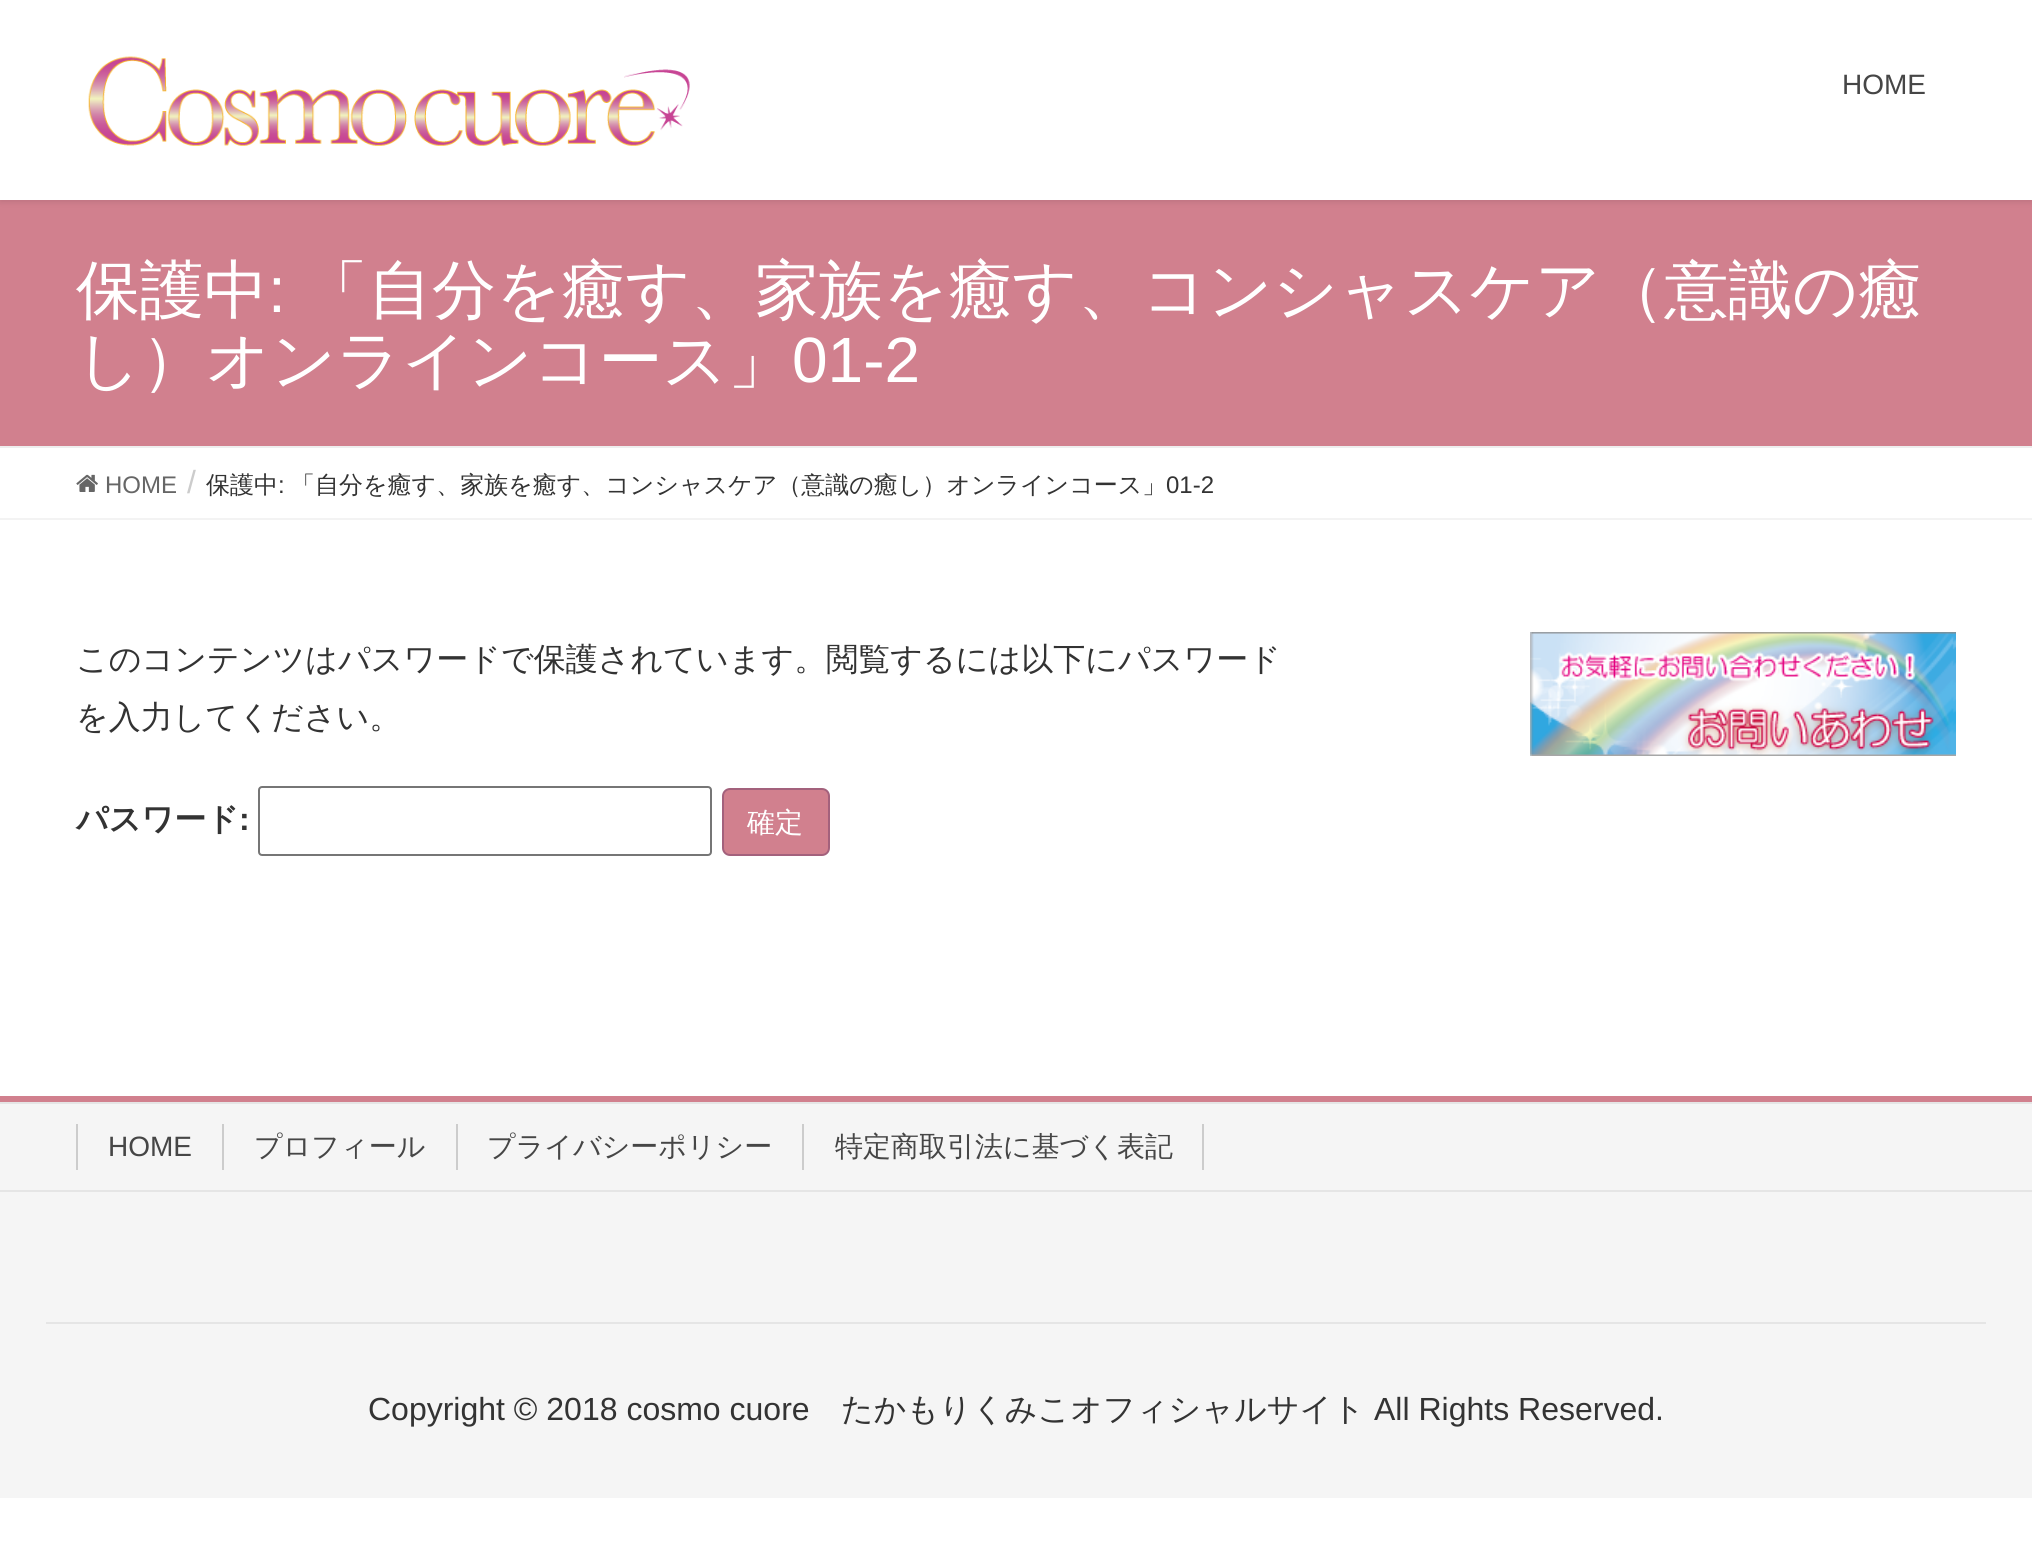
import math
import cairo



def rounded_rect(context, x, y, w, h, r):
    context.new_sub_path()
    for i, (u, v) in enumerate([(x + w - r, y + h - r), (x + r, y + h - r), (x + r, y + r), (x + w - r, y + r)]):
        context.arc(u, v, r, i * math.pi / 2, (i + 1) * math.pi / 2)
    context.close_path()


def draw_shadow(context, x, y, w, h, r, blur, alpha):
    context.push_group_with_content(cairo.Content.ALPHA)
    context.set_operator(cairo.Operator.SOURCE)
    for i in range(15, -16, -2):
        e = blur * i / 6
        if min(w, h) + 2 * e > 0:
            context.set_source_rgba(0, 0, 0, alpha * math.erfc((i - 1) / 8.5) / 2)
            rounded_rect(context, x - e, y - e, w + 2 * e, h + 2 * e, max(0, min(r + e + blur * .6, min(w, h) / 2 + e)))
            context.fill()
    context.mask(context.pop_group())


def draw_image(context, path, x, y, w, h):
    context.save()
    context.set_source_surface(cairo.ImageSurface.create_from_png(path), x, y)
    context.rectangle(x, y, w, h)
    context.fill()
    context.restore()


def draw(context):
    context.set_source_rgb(1, 1, 1)
    context.paint()
    context.set_source_rgb(209 / 255, 128 / 255, 142 / 255)
    context.rectangle(0, 200, 2032, 246)
    context.fill()
    context.set_source_rgb(0, 0, 0)
    draw_shadow(context, 0, 2, 2032, 200, 0, 3, 0.1)
    context.set_source_rgb(1, 1, 1)
    context.rectangle(0, 0, 2032, 200)
    context.fill()
    draw_image(context, "images/1.png", 88, 56, 602, 90)
    context.set_source_rgb(238 / 255, 238 / 255, 238 / 255)
    context.rectangle(0, 446, 2032, 2)
    context.fill()
    context.set_source_rgb(243 / 255, 243 / 255, 243 / 255)
    context.rectangle(0, 518, 2032, 2)
    context.fill()
    draw_image(context, "images/2.png", 76, 474, 22, 18)
    rounded_rect(context, 259, 787, 452, 68, 3)
    context.set_source_rgb(118 / 255, 118 / 255, 118 / 255)
    context.stroke()
    context.set_source_rgb(209 / 255, 128 / 255, 142 / 255)
    rounded_rect(context, 723, 789, 106, 66, 7)
    context.fill_preserve()
    context.set_source_rgb(163 / 255, 97 / 255, 124 / 255)
    context.stroke()
    draw_image(context, "images/3.png", 1530, 632, 426, 124)
    context.set_source_rgb(245 / 255, 245 / 255, 245 / 255)
    context.rectangle(0, 1104, 2032, 394)
    context.fill()
    context.set_source_rgb(209 / 255, 128 / 255, 142 / 255)
    context.rectangle(0, 1096, 2032, 6)
    context.fill()
    context.set_source_rgb(229 / 255, 229 / 255, 229 / 255)
    context.rectangle(0, 1102, 2032, 2)
    context.fill()
    context.rectangle(0, 1190, 2032, 2)
    context.fill()
    context.set_source_rgb(204 / 255, 204 / 255, 204 / 255)
    context.rectangle(76, 1124, 2, 46)
    context.fill()
    context.rectangle(222, 1124, 2, 46)
    context.fill()
    context.rectangle(456, 1124, 2, 46)
    context.fill()
    context.rectangle(1202, 1124, 2, 46)
    context.fill()
    context.rectangle(802, 1124, 2, 46)
    context.fill()
    context.set_source_rgb(229 / 255, 229 / 255, 229 / 255)
    context.rectangle(46, 1322, 1940, 2)
    context.fill()
    context.select_font_face("Liberation Sans")
    context.set_font_size(28)
    context.set_source_rgb(70 / 255, 70 / 255, 70 / 255)
    context.move_to(1842, 94)
    context.show_text("HOME")
    context.select_font_face("WenQuanYi Zen Hei Medium")
    context.set_font_size(64)
    context.set_source_rgb(1, 1, 1)
    context.move_to(76, 312)
    context.show_text("保護中")
    context.select_font_face("Liberation Sans")
    context.move_to(268, 312)
    context.show_text(":")
    context.select_font_face("WenQuanYi Zen Hei Medium")
    context.move_to(304, 312)
    context.show_text("「自分を癒す、家族を癒す、コンシャスケア（意識の癒")
    context.move_to(76, 382)
    context.show_text("し）オンラインコース」")
    context.select_font_face("Liberation Sans")
    context.move_to(792, 382)
    context.show_text("01-2")
    context.set_font_size(24)
    context.set_source_rgb(102 / 255, 102 / 255, 102 / 255)
    context.move_to(105, 493)
    context.show_text("HOME")
    context.set_font_size(32)
    context.set_source_rgb(204 / 255, 204 / 255, 204 / 255)
    context.move_to(187, 493)
    context.show_text("/")
    context.select_font_face("WenQuanYi Zen Hei Medium")
    context.set_font_size(24)
    context.set_source_rgb(51 / 255, 51 / 255, 51 / 255)
    context.move_to(206, 493)
    context.show_text("保護中")
    context.select_font_face("Liberation Sans")
    context.move_to(278, 493)
    context.show_text(":")
    context.select_font_face("WenQuanYi Zen Hei Medium")
    context.move_to(291, 493)
    context.show_text("「自分を癒す、家族を癒す、コンシャスケア（意識の癒し）オンラインコース」")
    context.select_font_face("Liberation Sans")
    context.move_to(1166, 493)
    context.show_text("01-2")
    context.select_font_face("WenQuanYi Zen Hei Medium")
    context.set_font_size(32)
    context.move_to(76, 670)
    context.show_text("このコンテンツはパスワードで保護されています。閲覧するには以下にパスワード")
    context.move_to(76, 728)
    context.show_text("を入力してください。")
    context.select_font_face("WenQuanYi Zen Hei", cairo.FontSlant.NORMAL, cairo.FontWeight.BOLD)
    context.move_to(76, 830)
    context.show_text("パスワード")
    context.select_font_face("Liberation Sans", cairo.FontSlant.NORMAL, cairo.FontWeight.BOLD)
    context.move_to(239, 830)
    context.show_text(":")
    context.select_font_face("WenQuanYi Zen Hei Medium")
    context.set_font_size(28)
    context.set_source_rgb(1, 1, 1)
    context.move_to(747, 832)
    context.show_text("確定")
    context.select_font_face("Liberation Sans")
    context.set_source_rgb(70 / 255, 70 / 255, 70 / 255)
    context.move_to(108, 1156)
    context.show_text("HOME")
    context.select_font_face("WenQuanYi Zen Hei Medium")
    context.move_to(254, 1156)
    context.show_text("プロフィール")
    context.move_to(487, 1156)
    context.show_text("プライバシーポリシー")
    context.move_to(835, 1156)
    context.show_text("特定商取引法に基づく表記")
    context.select_font_face("Liberation Sans")
    context.set_font_size(32)
    context.set_source_rgb(51 / 255, 51 / 255, 51 / 255)
    context.move_to(368, 1420)
    context.show_text("Copyright © 2018 cosmo cuore")
    context.select_font_face("WenQuanYi Zen Hei Medium")
    context.move_to(841, 1420)
    context.show_text("たかもりくみこオフィシャルサイト")
    context.select_font_face("Liberation Sans")
    context.move_to(1374, 1420)
    context.show_text("All Rights Reserved.")


surface = cairo.ImageSurface(cairo.Format.RGB24, 2032, 1556)
context = cairo.Context(surface)
options = cairo.FontOptions()
options.set_hint_metrics(cairo.HintMetrics.OFF)
options.set_hint_style(cairo.HintStyle.NONE)
context.set_font_options(options)
context.set_miter_limit(4)
draw(context)
surface.write_to_png("out.png")
